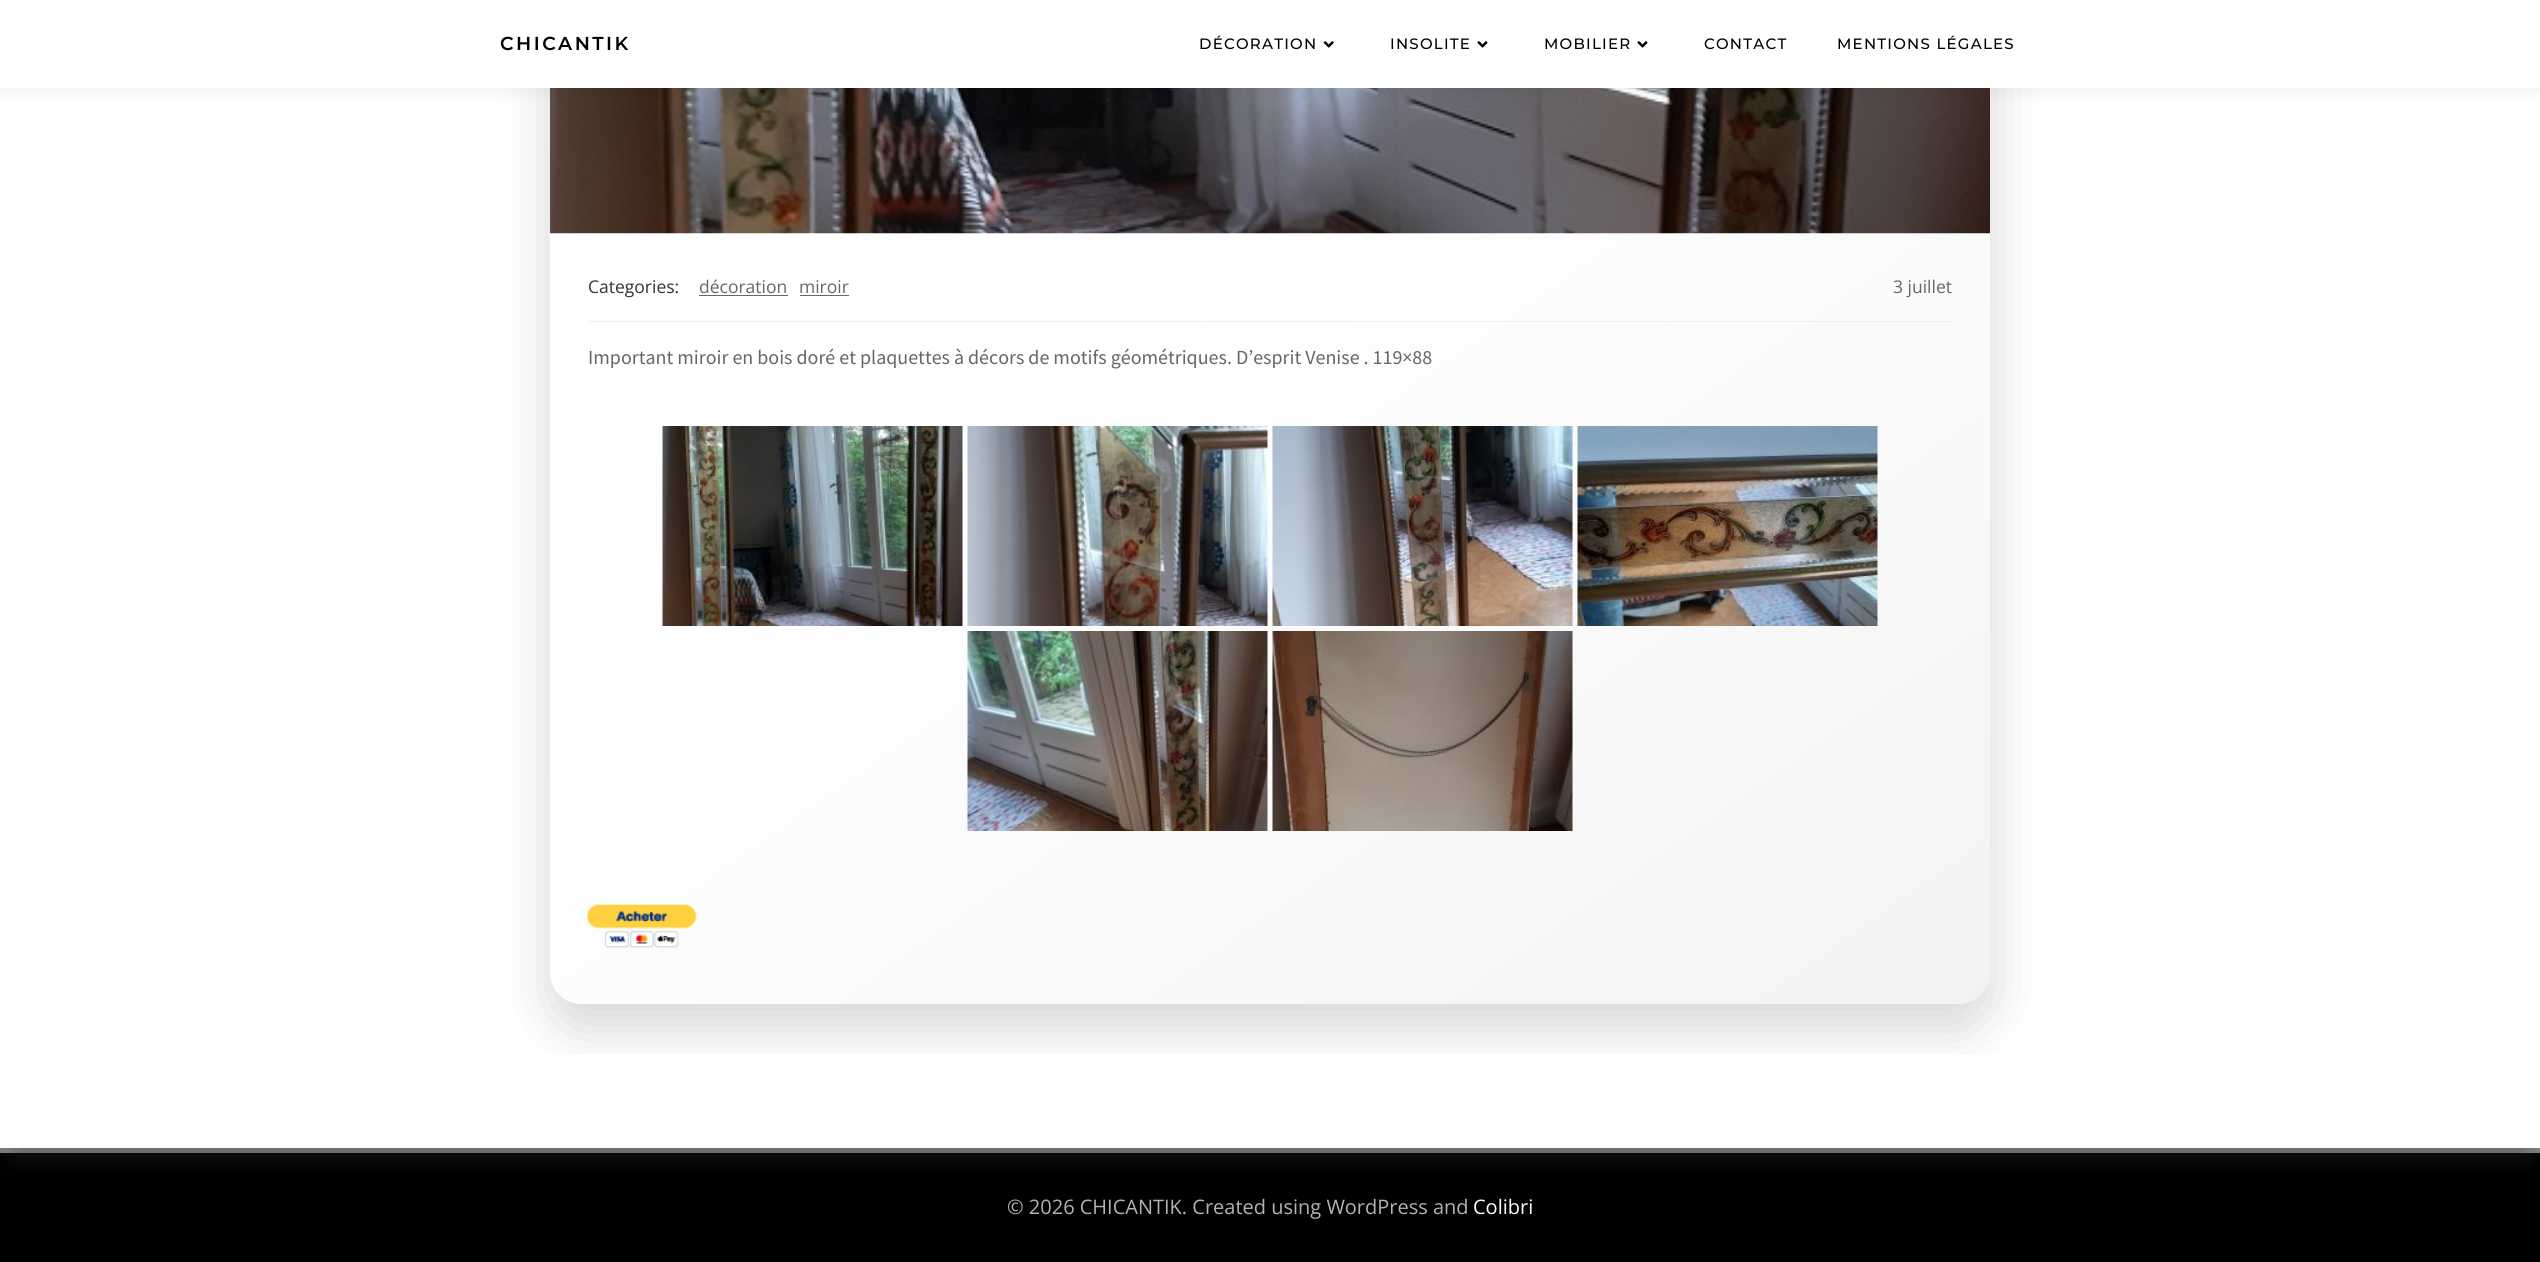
import math
import cairo



def draw_spaced(context, x, y, s, letter, word):
    context.move_to(x, y)
    for ch in s:
        context.show_text(ch)
        context.rel_move_to(letter + word * (ch == ' '), 0)


def rounded_rect(context, x, y, w, h, r):
    context.new_sub_path()
    for i, (u, v) in enumerate([(x + w - r, y + h - r), (x + r, y + h - r), (x + r, y + r), (x + w - r, y + r)]):
        context.arc(u, v, r, i * math.pi / 2, (i + 1) * math.pi / 2)
    context.close_path()


def draw_shadow(context, x, y, w, h, r, blur, alpha):
    context.push_group_with_content(cairo.Content.ALPHA)
    context.set_operator(cairo.Operator.SOURCE)
    for i in range(15, -16, -2):
        e = blur * i / 6
        if min(w, h) + 2 * e > 0:
            context.set_source_rgba(0, 0, 0, alpha * math.erfc((i - 1) / 8.5) / 2)
            rounded_rect(context, x - e, y - e, w + 2 * e, h + 2 * e, max(0, min(r + e + blur * .6, min(w, h) / 2 + e)))
            context.fill()
    context.mask(context.pop_group())


def draw_image(context, path, x, y, w, h):
    context.save()
    context.set_source_surface(cairo.ImageSurface.create_from_png(path), x, y)
    context.rectangle(x, y, w, h)
    context.fill()
    context.restore()


def draw(context):
    context.set_source_rgb(0, 0, 0)
    context.paint()
    context.set_source_rgb(128 / 255, 128 / 255, 128 / 255)
    context.rectangle(0, 1148, 2540, 5)
    context.fill()
    context.set_source_rgb(49 / 255, 52 / 255, 57 / 255)
    draw_shadow(context, 13, -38, 2515, 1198, 0, 12.5, 0.3)
    context.set_source_rgb(1, 1, 1)
    context.rectangle(0, 88, 2540, 1060)
    context.fill()
    context.save()
    context.rectangle(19, 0, 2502, 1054)
    context.clip()
    context.set_source_rgb(0, 0, 0)
    draw_shadow(context, 548, -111, 1445, 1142, 36, 25, 0.15)
    context.restore()
    gradient = cairo.LinearGradient(749, -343, 1791, 1143)
    gradient.add_color_stop_rgba(0.42, 1, 1, 1, 1)
    gradient.add_color_stop_rgba(1, 243 / 255, 243 / 255, 243 / 255, 1)
    context.set_source(gradient)
    context.new_path()
    context.move_to(584, -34)
    context.line_to(1956, -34)
    context.curve_to(1975, -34, 1990, -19, 1990, 0)
    context.line_to(1990, 973)
    context.curve_to(1990, 990, 1976, 1004, 1959, 1004)
    context.line_to(581, 1004)
    context.curve_to(564, 1004, 550, 990, 550, 973)
    context.line_to(550, 0)
    context.curve_to(550, -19, 565, -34, 584, -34)
    context.close_path()
    context.fill()
    draw_image(context, "images/3.png", 550, 88, 1440, 146)
    context.set_source_rgb(0, 0, 0)
    draw_shadow(context, 0, 6, 2540, 88, 0, 6, 0.05)
    context.set_source_rgb(1, 1, 1)
    context.rectangle(0, 0, 2540, 88)
    context.fill()
    draw_image(context, "images/1.png", 1323, 41, 11, 7)
    draw_image(context, "images/2.png", 1477, 41, 11, 7)
    draw_image(context, "images/2.png", 1637, 41, 11, 7)
    context.set_source_rgb(238 / 255, 238 / 255, 238 / 255)
    context.rectangle(588, 321, 1365, 1)
    context.fill()
    context.set_source_rgb(102 / 255, 102 / 255, 102 / 255)
    context.rectangle(699, 295, 89, 1)
    context.fill()
    context.rectangle(800, 295, 49, 1)
    context.fill()
    draw_image(context, "images/4.png", 662, 426, 301, 200)
    draw_image(context, "images/5.png", 967, 426, 301, 200)
    draw_image(context, "images/6.png", 1272, 426, 301, 200)
    draw_image(context, "images/7.png", 1577, 426, 301, 200)
    draw_image(context, "images/8.png", 967, 631, 301, 200)
    draw_image(context, "images/9.png", 1272, 631, 301, 200)
    draw_image(context, "images/10.png", 587, 904, 110, 44)
    context.select_font_face("Montserrat SemiBold")
    context.set_font_size(18.75)
    context.set_source_rgb(0, 0, 0)
    draw_spaced(context, 500, 50, "CHICANTIK", 2.5, 0)
    context.select_font_face("Montserrat Medium")
    context.set_font_size(15)
    draw_spaced(context, 1199, 49, "DÉCORATION", 1.25, 0)
    draw_spaced(context, 1390, 49, "INSOLITE", 1.25, 0)
    draw_spaced(context, 1544, 49, "MOBILIER", 1.25, 0)
    draw_spaced(context, 1704, 49, "CONTACT", 1.25, 0)
    draw_spaced(context, 1837, 49, "MENTIONS LÉGALES", 1.25, 0)
    context.select_font_face("Open Sans")
    context.set_font_size(17.5)
    context.set_source_rgb(51 / 255, 51 / 255, 51 / 255)
    context.move_to(588, 293)
    context.show_text("Categories:")
    context.set_source_rgb(102 / 255, 102 / 255, 102 / 255)
    context.move_to(699, 293)
    context.show_text("décoration")
    context.move_to(799, 293)
    context.show_text("miroir")
    context.move_to(1893, 293)
    context.show_text("3 juillet")
    context.select_font_face("Source Sans Pro")
    context.set_font_size(20)
    context.move_to(588, 364)
    context.show_text("Important miroir en bois doré et plaquettes à décors de motifs géométriques. D’esprit Venise . 119×88")
    context.select_font_face("Open Sans")
    context.set_source_rgb(179 / 255, 179 / 255, 179 / 255)
    context.move_to(1007, 1214)
    context.show_text("© 2026 CHICANTIK. Created using WordPress and")
    context.set_source_rgb(1, 1, 1)
    context.move_to(1473, 1214)
    context.show_text("Colibri")


surface = cairo.ImageSurface(cairo.Format.RGB24, 2540, 1262)
context = cairo.Context(surface)
options = cairo.FontOptions()
options.set_hint_metrics(cairo.HintMetrics.OFF)
options.set_hint_style(cairo.HintStyle.NONE)
context.set_font_options(options)
context.set_miter_limit(4)
draw(context)
surface.write_to_png("out.png")
